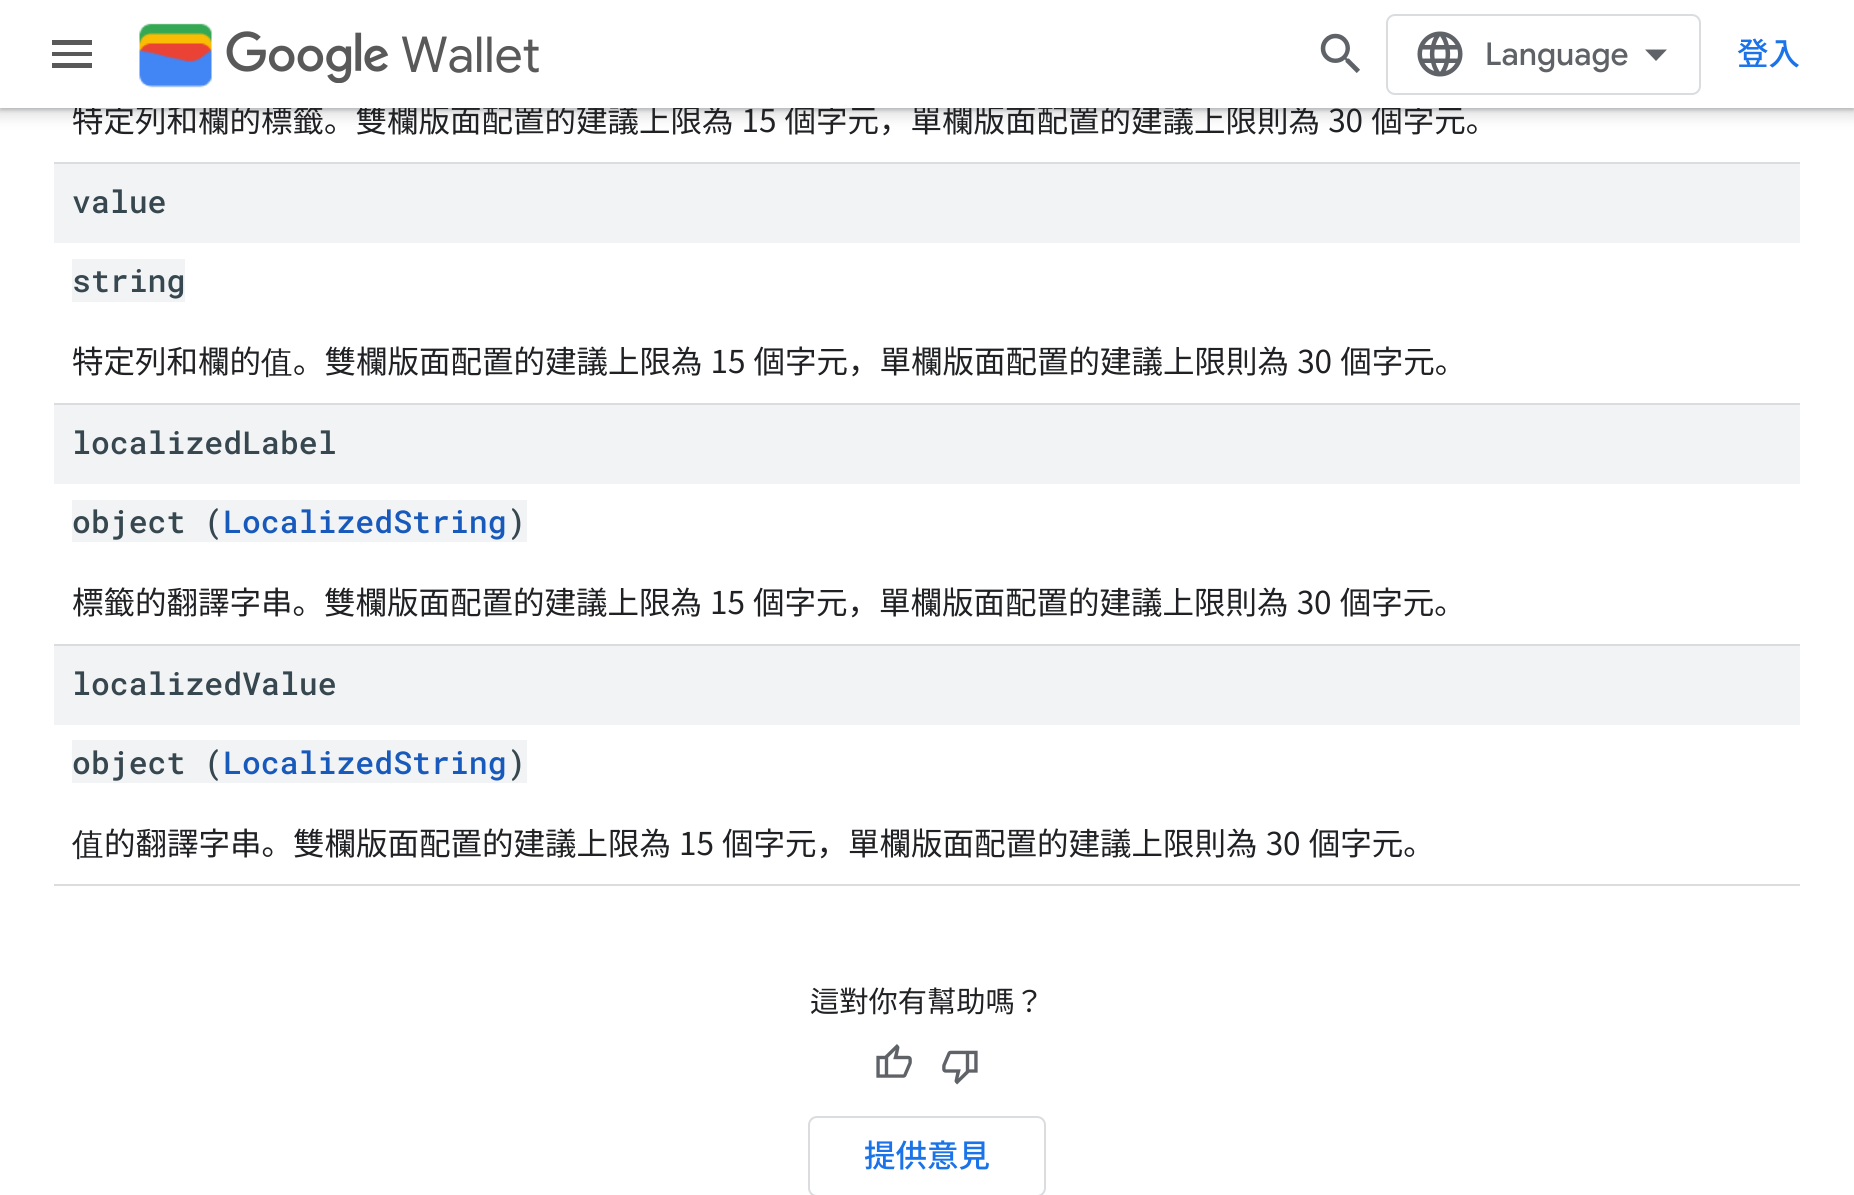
import math
import cairo



def draw_spaced(context, x, y, s, letter, word):
    context.move_to(x, y)
    for ch in s:
        context.show_text(ch)
        context.rel_move_to(letter + word * (ch == ' '), 0)


def rounded_rect(context, x, y, w, h, r):
    context.new_sub_path()
    for i, (u, v) in enumerate([(x + w - r, y + h - r), (x + r, y + h - r), (x + r, y + r), (x + w - r, y + r)]):
        context.arc(u, v, r, i * math.pi / 2, (i + 1) * math.pi / 2)
    context.close_path()


def draw_shadow(context, x, y, w, h, r, blur, alpha):
    context.push_group_with_content(cairo.Content.ALPHA)
    context.set_operator(cairo.Operator.SOURCE)
    for i in range(15, -16, -2):
        e = blur * i / 6
        if min(w, h) + 2 * e > 0:
            context.set_source_rgba(0, 0, 0, alpha * math.erfc((i - 1) / 8.5) / 2)
            rounded_rect(context, x - e, y - e, w + 2 * e, h + 2 * e, max(0, min(r + e + blur * .6, min(w, h) / 2 + e)))
            context.fill()
    context.mask(context.pop_group())


def draw_image(context, path, x, y, w, h):
    context.save()
    context.set_source_surface(cairo.ImageSurface.create_from_png(path), x, y)
    context.rectangle(x, y, w, h)
    context.fill()
    context.restore()


def draw(context):
    context.set_source_rgb(1, 1, 1)
    context.paint()
    context.set_source_rgb(60 / 255, 64 / 255, 67 / 255)
    draw_shadow(context, -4, -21, 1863, 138, 0, 7, 0.15)
    draw_shadow(context, 0, -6, 1854, 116, 0, 2, 0.3)
    context.set_source_rgb(218 / 255, 220 / 255, 224 / 255)
    context.rectangle(54, 162, 1746, 2)
    context.fill()
    context.rectangle(54, 403, 1746, 2)
    context.fill()
    context.set_source_rgb(241 / 255, 243 / 255, 244 / 255)
    context.rectangle(54, 164, 1746, 79)
    context.fill()
    context.rectangle(72, 259, 113, 43)
    context.fill()
    context.set_source_rgb(218 / 255, 220 / 255, 224 / 255)
    context.rectangle(54, 644, 1746, 2)
    context.fill()
    context.set_source_rgb(241 / 255, 243 / 255, 244 / 255)
    context.rectangle(54, 405, 1746, 79)
    context.fill()
    context.rectangle(72, 500, 455, 42)
    context.fill()
    context.set_source_rgb(218 / 255, 220 / 255, 224 / 255)
    context.rectangle(54, 884, 1746, 2)
    context.fill()
    context.set_source_rgb(241 / 255, 243 / 255, 244 / 255)
    context.rectangle(54, 646, 1746, 79)
    context.fill()
    context.rectangle(72, 740, 455, 43)
    context.fill()
    draw_image(context, "images/5.png", 876, 1044, 36, 34)
    draw_image(context, "images/6.png", 942, 1050, 36, 35)
    rounded_rect(context, 809, 1117, 236, 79, 8)
    context.set_source_rgb(218 / 255, 220 / 255, 224 / 255)
    context.stroke()
    context.select_font_face("Noto Sans JP")
    context.set_font_size(31.5)
    context.set_source_rgb(32 / 255, 33 / 255, 36 / 255)
    draw_spaced(context, 72, 132, "特定列和欄的標籤。雙欄版面配置的建議上限為 15 個字元，單欄版面配置的建議上限則為 30 個字元。", 0, 1)
    context.set_source_rgb(1, 1, 1)
    context.rectangle(0, 0, 1854, 108)
    context.fill()
    context.set_source_rgb(89 / 255, 89 / 255, 89 / 255)
    context.new_path()
    context.move_to(52, 40)
    context.line_to(92, 40)
    context.line_to(92, 45)
    context.line_to(52, 45)
    context.close_path()
    context.move_to(52, 56)
    context.line_to(52, 52)
    context.line_to(92, 52)
    context.line_to(92, 56)
    context.close_path()
    context.move_to(52, 68)
    context.line_to(52, 63)
    context.line_to(92, 63)
    context.line_to(92, 68)
    context.close_path()
    context.fill()
    draw_image(context, "images/3.png", 1320, 33, 40, 40)
    rounded_rect(context, 1387, 15, 313, 79, 8)
    context.set_source_rgb(218 / 255, 220 / 255, 224 / 255)
    context.stroke()
    context.set_source_rgb(95 / 255, 99 / 255, 104 / 255)
    context.new_path()
    context.move_to(1656, 61)
    context.line_to(1645, 49.5)
    context.line_to(1667, 49.5)
    context.close_path()
    context.fill()
    context.select_font_face("Google Sans Medium")
    context.move_to(1485, 65)
    context.show_text("Language")
    draw_image(context, "images/4.png", 1417, 31, 46, 46)
    draw_image(context, "images/2.png", 226, 31, 163, 52)
    context.select_font_face("Noto Sans JP Medium")
    context.set_source_rgb(26 / 255, 115 / 255, 232 / 255)
    context.move_to(1737, 65)
    context.show_text("登入")
    context.select_font_face("Google Sans")
    context.set_font_size(49.5)
    context.set_source_rgb(89 / 255, 89 / 255, 89 / 255)
    context.move_to(401, 72)
    context.show_text("Wallet")
    draw_image(context, "images/1.png", 139, 23, 73, 65)
    context.select_font_face("Roboto Mono Medium")
    context.set_font_size(31.5)
    context.set_source_rgb(55 / 255, 71 / 255, 79 / 255)
    context.move_to(72, 213)
    context.show_text("value")
    context.move_to(72, 292)
    context.show_text("string")
    context.select_font_face("Noto Sans JP")
    context.set_source_rgb(32 / 255, 33 / 255, 36 / 255)
    context.move_to(72, 373)
    context.show_text("特定列和欄的")
    context.select_font_face("WenQuanYi Zen Hei Medium")
    context.move_to(261, 373)
    context.show_text("值")
    context.select_font_face("Noto Sans JP")
    draw_spaced(context, 293, 373, "。雙欄版面配置的建議上限為 15 個字元，單欄版面配置的建議上限則為 30 個字元。", 0, 1)
    context.select_font_face("Roboto Mono Medium")
    context.set_source_rgb(55 / 255, 71 / 255, 79 / 255)
    context.move_to(72, 454)
    context.show_text("localizedLabel")
    context.move_to(72, 533)
    context.show_text("object (")
    context.set_source_rgb(24 / 255, 90 / 255, 188 / 255)
    context.move_to(223, 533)
    context.show_text("LocalizedString")
    context.set_source_rgb(55 / 255, 71 / 255, 79 / 255)
    context.move_to(507, 533)
    context.show_text(")")
    context.select_font_face("Noto Sans JP")
    context.set_source_rgb(32 / 255, 33 / 255, 36 / 255)
    draw_spaced(context, 72, 614, "標籤的翻譯字串。雙欄版面配置的建議上限為 15 個字元，單欄版面配置的建議上限則為 30 個字元。", 0, 1)
    context.select_font_face("Roboto Mono Medium")
    context.set_source_rgb(55 / 255, 71 / 255, 79 / 255)
    context.move_to(72, 695)
    context.show_text("localizedValue")
    context.move_to(72, 774)
    context.show_text("object (")
    context.set_source_rgb(24 / 255, 90 / 255, 188 / 255)
    context.move_to(223, 774)
    context.show_text("LocalizedString")
    context.set_source_rgb(55 / 255, 71 / 255, 79 / 255)
    context.move_to(507, 774)
    context.show_text(")")
    context.select_font_face("WenQuanYi Zen Hei Medium")
    context.set_source_rgb(32 / 255, 33 / 255, 36 / 255)
    context.move_to(72, 855)
    context.show_text("值")
    context.select_font_face("Noto Sans JP")
    draw_spaced(context, 104, 855, "的翻譯字串。雙欄版面配置的建議上限為 15 個字元，單欄版面配置的建議上限則為 30 個字元。", 0, 1)
    context.set_font_size(29.25)
    context.move_to(810, 1012)
    context.show_text("這對你有幫助嗎？")
    context.select_font_face("Noto Sans JP Medium")
    context.set_font_size(31.5)
    context.set_source_rgb(26 / 255, 115 / 255, 232 / 255)
    context.move_to(864, 1167)
    context.show_text("提供意見")


surface = cairo.ImageSurface(cairo.Format.RGB24, 1854, 1195)
context = cairo.Context(surface)
options = cairo.FontOptions()
options.set_hint_metrics(cairo.HintMetrics.OFF)
options.set_hint_style(cairo.HintStyle.NONE)
context.set_font_options(options)
context.set_miter_limit(4)
draw(context)
surface.write_to_png("out.png")
